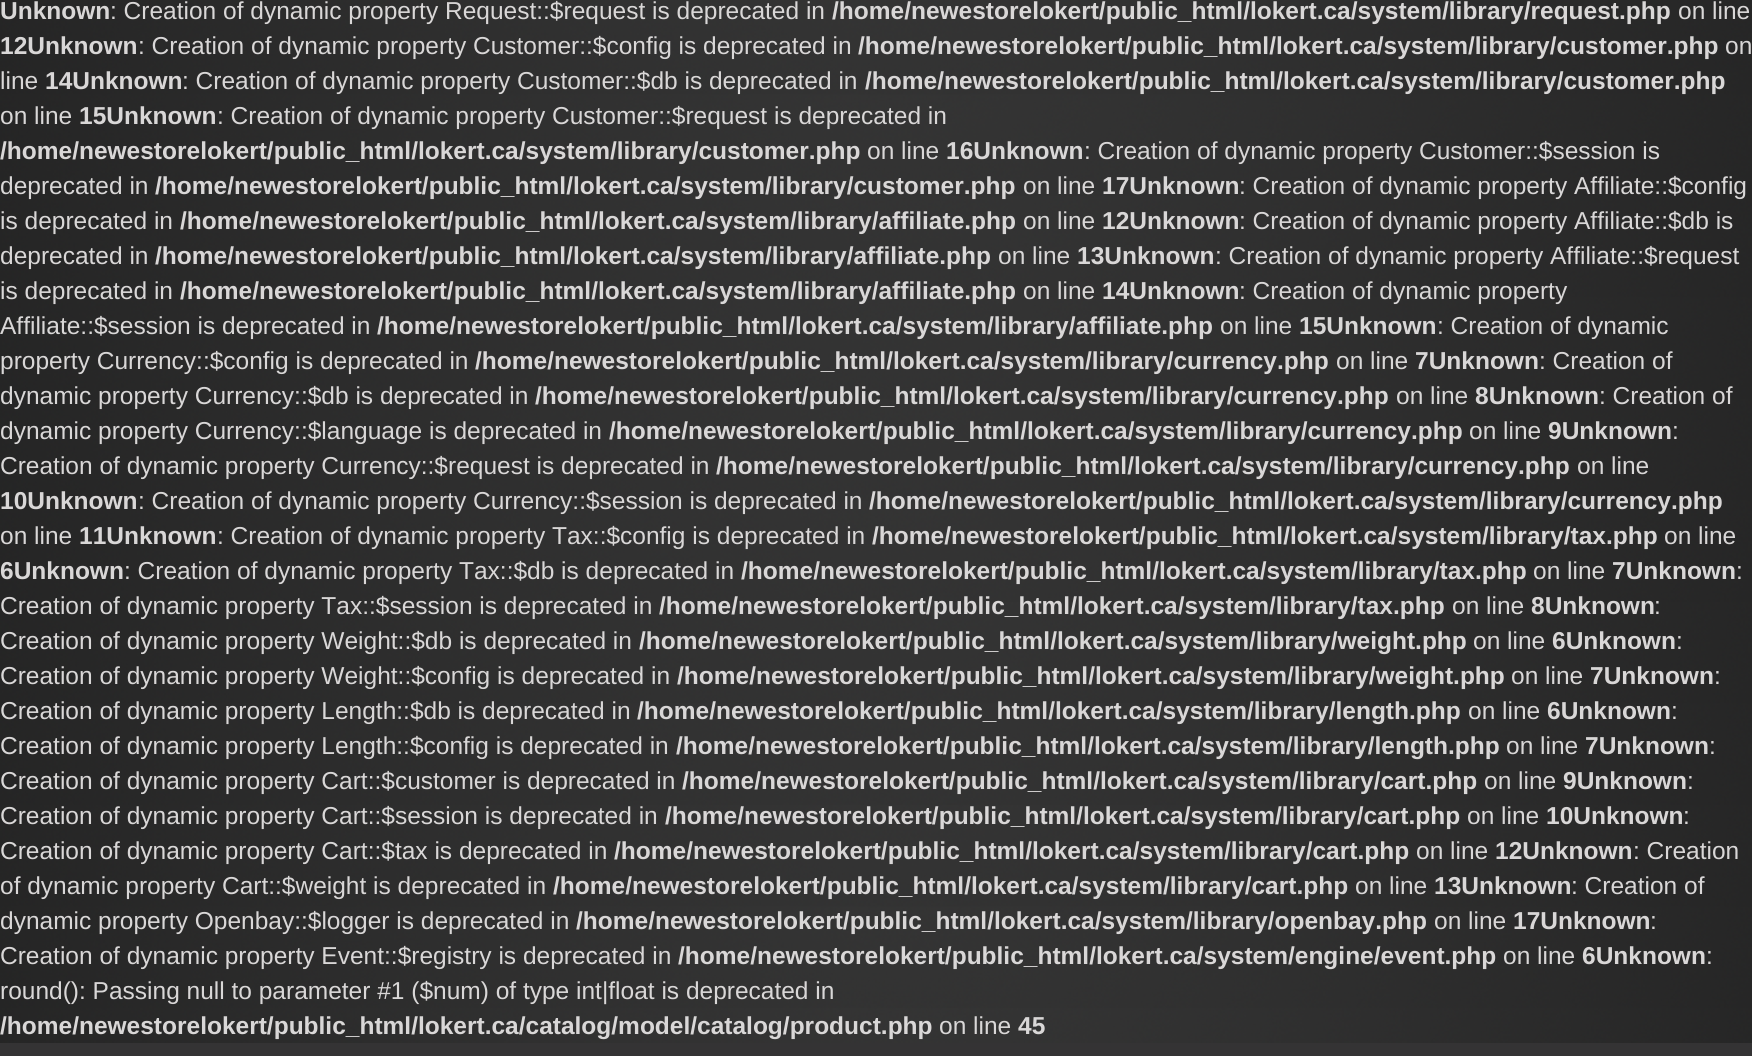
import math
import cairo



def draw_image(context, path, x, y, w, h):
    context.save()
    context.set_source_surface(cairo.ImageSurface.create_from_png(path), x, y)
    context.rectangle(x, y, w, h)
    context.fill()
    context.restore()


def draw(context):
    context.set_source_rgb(1, 1, 1)
    context.paint()
    draw_image(context, "images/1.png", 0, 0, 1752, 1043)
    context.set_source_rgb(52 / 255, 51 / 255, 52 / 255)
    context.rectangle(0, 1043, 1752, 13)
    context.fill()
    context.select_font_face("Liberation Sans", cairo.FontSlant.NORMAL, cairo.FontWeight.BOLD)
    context.set_font_size(24.5)
    context.set_source_rgb(217 / 255, 215 / 255, 215 / 255)
    context.move_to(0, 19)
    context.show_text("Unknown")
    context.select_font_face("Liberation Sans")
    context.move_to(110, 19)
    context.show_text(": Creation of dynamic property Request::$request is deprecated in")
    context.select_font_face("Liberation Sans", cairo.FontSlant.NORMAL, cairo.FontWeight.BOLD)
    context.move_to(832, 19)
    context.show_text("/home/newestorelokert/public_html/lokert.ca/system/library/request.php")
    context.select_font_face("Liberation Sans")
    context.move_to(1678, 19)
    context.show_text("on line")
    context.select_font_face("Liberation Sans", cairo.FontSlant.NORMAL, cairo.FontWeight.BOLD)
    context.move_to(0, 54)
    context.show_text("12Unknown")
    context.select_font_face("Liberation Sans")
    context.move_to(138, 54)
    context.show_text(": Creation of dynamic property Customer::$config is deprecated in")
    context.select_font_face("Liberation Sans", cairo.FontSlant.NORMAL, cairo.FontWeight.BOLD)
    context.move_to(858, 54)
    context.show_text("/home/newestorelokert/public_html/lokert.ca/system/library/customer.php")
    context.select_font_face("Liberation Sans")
    context.move_to(1725, 54)
    context.show_text("on")
    context.move_to(0, 89)
    context.show_text("line")
    context.select_font_face("Liberation Sans", cairo.FontSlant.NORMAL, cairo.FontWeight.BOLD)
    context.move_to(45, 89)
    context.show_text("14Unknown")
    context.select_font_face("Liberation Sans")
    context.move_to(182, 89)
    context.show_text(": Creation of dynamic property Customer::$db is deprecated in")
    context.select_font_face("Liberation Sans", cairo.FontSlant.NORMAL, cairo.FontWeight.BOLD)
    context.move_to(865, 89)
    context.show_text("/home/newestorelokert/public_html/lokert.ca/system/library/customer.php")
    context.select_font_face("Liberation Sans")
    context.move_to(0, 124)
    context.show_text("on line")
    context.select_font_face("Liberation Sans", cairo.FontSlant.NORMAL, cairo.FontWeight.BOLD)
    context.move_to(79, 124)
    context.show_text("15Unknown")
    context.select_font_face("Liberation Sans")
    context.move_to(217, 124)
    context.show_text(": Creation of dynamic property Customer::$request is deprecated in")
    context.select_font_face("Liberation Sans", cairo.FontSlant.NORMAL, cairo.FontWeight.BOLD)
    context.move_to(0, 159)
    context.show_text("/home/newestorelokert/public_html/lokert.ca/system/library/customer.php")
    context.select_font_face("Liberation Sans")
    context.move_to(867, 159)
    context.show_text("on line")
    context.select_font_face("Liberation Sans", cairo.FontSlant.NORMAL, cairo.FontWeight.BOLD)
    context.move_to(946, 159)
    context.show_text("16Unknown")
    context.select_font_face("Liberation Sans")
    context.move_to(1084, 159)
    context.show_text(": Creation of dynamic property Customer::$session is")
    context.move_to(0, 194)
    context.show_text("deprecated in")
    context.select_font_face("Liberation Sans", cairo.FontSlant.NORMAL, cairo.FontWeight.BOLD)
    context.move_to(155, 194)
    context.show_text("/home/newestorelokert/public_html/lokert.ca/system/library/customer.php")
    context.select_font_face("Liberation Sans")
    context.move_to(1023, 194)
    context.show_text("on line")
    context.select_font_face("Liberation Sans", cairo.FontSlant.NORMAL, cairo.FontWeight.BOLD)
    context.move_to(1102, 194)
    context.show_text("17Unknown")
    context.select_font_face("Liberation Sans")
    context.move_to(1239, 194)
    context.show_text(": Creation of dynamic property Affiliate::$config")
    context.move_to(0, 229)
    context.show_text("is deprecated in")
    context.select_font_face("Liberation Sans", cairo.FontSlant.NORMAL, cairo.FontWeight.BOLD)
    context.move_to(180, 229)
    context.show_text("/home/newestorelokert/public_html/lokert.ca/system/library/affiliate.php")
    context.select_font_face("Liberation Sans")
    context.move_to(1023, 229)
    context.show_text("on line")
    context.select_font_face("Liberation Sans", cairo.FontSlant.NORMAL, cairo.FontWeight.BOLD)
    context.move_to(1102, 229)
    context.show_text("12Unknown")
    context.select_font_face("Liberation Sans")
    context.move_to(1239, 229)
    context.show_text(": Creation of dynamic property Affiliate::$db is")
    context.move_to(0, 264)
    context.show_text("deprecated in")
    context.select_font_face("Liberation Sans", cairo.FontSlant.NORMAL, cairo.FontWeight.BOLD)
    context.move_to(155, 264)
    context.show_text("/home/newestorelokert/public_html/lokert.ca/system/library/affiliate.php")
    context.select_font_face("Liberation Sans")
    context.move_to(998, 264)
    context.show_text("on line")
    context.select_font_face("Liberation Sans", cairo.FontSlant.NORMAL, cairo.FontWeight.BOLD)
    context.move_to(1077, 264)
    context.show_text("13Unknown")
    context.select_font_face("Liberation Sans")
    context.move_to(1215, 264)
    context.show_text(": Creation of dynamic property Affiliate::$request")
    context.move_to(0, 299)
    context.show_text("is deprecated in")
    context.select_font_face("Liberation Sans", cairo.FontSlant.NORMAL, cairo.FontWeight.BOLD)
    context.move_to(180, 299)
    context.show_text("/home/newestorelokert/public_html/lokert.ca/system/library/affiliate.php")
    context.select_font_face("Liberation Sans")
    context.move_to(1023, 299)
    context.show_text("on line")
    context.select_font_face("Liberation Sans", cairo.FontSlant.NORMAL, cairo.FontWeight.BOLD)
    context.move_to(1102, 299)
    context.show_text("14Unknown")
    context.select_font_face("Liberation Sans")
    context.move_to(1239, 299)
    context.show_text(": Creation of dynamic property")
    context.move_to(0, 334)
    context.show_text("Affiliate::$session is deprecated in")
    context.select_font_face("Liberation Sans", cairo.FontSlant.NORMAL, cairo.FontWeight.BOLD)
    context.move_to(377, 334)
    context.show_text("/home/newestorelokert/public_html/lokert.ca/system/library/affiliate.php")
    context.select_font_face("Liberation Sans")
    context.move_to(1220, 334)
    context.show_text("on line")
    context.select_font_face("Liberation Sans", cairo.FontSlant.NORMAL, cairo.FontWeight.BOLD)
    context.move_to(1299, 334)
    context.show_text("15Unknown")
    context.select_font_face("Liberation Sans")
    context.move_to(1437, 334)
    context.show_text(": Creation of dynamic")
    context.move_to(0, 369)
    context.show_text("property Currency::$config is deprecated in")
    context.select_font_face("Liberation Sans", cairo.FontSlant.NORMAL, cairo.FontWeight.BOLD)
    context.move_to(475, 369)
    context.show_text("/home/newestorelokert/public_html/lokert.ca/system/library/currency.php")
    context.select_font_face("Liberation Sans")
    context.move_to(1336, 369)
    context.show_text("on line")
    context.select_font_face("Liberation Sans", cairo.FontSlant.NORMAL, cairo.FontWeight.BOLD)
    context.move_to(1415, 369)
    context.show_text("7Unknown")
    context.select_font_face("Liberation Sans")
    context.move_to(1539, 369)
    context.show_text(": Creation of")
    context.move_to(0, 404)
    context.show_text("dynamic property Currency::$db is deprecated in")
    context.select_font_face("Liberation Sans", cairo.FontSlant.NORMAL, cairo.FontWeight.BOLD)
    context.move_to(535, 404)
    context.show_text("/home/newestorelokert/public_html/lokert.ca/system/library/currency.php")
    context.select_font_face("Liberation Sans")
    context.move_to(1396, 404)
    context.show_text("on line")
    context.select_font_face("Liberation Sans", cairo.FontSlant.NORMAL, cairo.FontWeight.BOLD)
    context.move_to(1475, 404)
    context.show_text("8Unknown")
    context.select_font_face("Liberation Sans")
    context.move_to(1599, 404)
    context.show_text(": Creation of")
    context.move_to(0, 439)
    context.show_text("dynamic property Currency::$language is deprecated in")
    context.select_font_face("Liberation Sans", cairo.FontSlant.NORMAL, cairo.FontWeight.BOLD)
    context.move_to(609, 439)
    context.show_text("/home/newestorelokert/public_html/lokert.ca/system/library/currency.php")
    context.select_font_face("Liberation Sans")
    context.move_to(1469, 439)
    context.show_text("on line")
    context.select_font_face("Liberation Sans", cairo.FontSlant.NORMAL, cairo.FontWeight.BOLD)
    context.move_to(1548, 439)
    context.show_text("9Unknown")
    context.select_font_face("Liberation Sans")
    context.move_to(1672, 439)
    context.show_text(":")
    context.move_to(0, 474)
    context.show_text("Creation of dynamic property Currency::$request is deprecated in")
    context.select_font_face("Liberation Sans", cairo.FontSlant.NORMAL, cairo.FontWeight.BOLD)
    context.move_to(716, 474)
    context.show_text("/home/newestorelokert/public_html/lokert.ca/system/library/currency.php")
    context.select_font_face("Liberation Sans")
    context.move_to(1577, 474)
    context.show_text("on line")
    context.select_font_face("Liberation Sans", cairo.FontSlant.NORMAL, cairo.FontWeight.BOLD)
    context.move_to(0, 509)
    context.show_text("10Unknown")
    context.select_font_face("Liberation Sans")
    context.move_to(138, 509)
    context.show_text(": Creation of dynamic property Currency::$session is deprecated in")
    context.select_font_face("Liberation Sans", cairo.FontSlant.NORMAL, cairo.FontWeight.BOLD)
    context.move_to(869, 509)
    context.show_text("/home/newestorelokert/public_html/lokert.ca/system/library/currency.php")
    context.select_font_face("Liberation Sans")
    context.move_to(0, 544)
    context.show_text("on line")
    context.select_font_face("Liberation Sans", cairo.FontSlant.NORMAL, cairo.FontWeight.BOLD)
    context.move_to(79, 544)
    context.show_text("11Unknown")
    context.select_font_face("Liberation Sans")
    context.move_to(217, 544)
    context.show_text(": Creation of dynamic property Tax::$config is deprecated in")
    context.select_font_face("Liberation Sans", cairo.FontSlant.NORMAL, cairo.FontWeight.BOLD)
    context.move_to(872, 544)
    context.show_text("/home/newestorelokert/public_html/lokert.ca/system/library/tax.php")
    context.select_font_face("Liberation Sans")
    context.move_to(1664, 544)
    context.show_text("on line")
    context.select_font_face("Liberation Sans", cairo.FontSlant.NORMAL, cairo.FontWeight.BOLD)
    context.move_to(0, 579)
    context.show_text("6Unknown")
    context.select_font_face("Liberation Sans")
    context.move_to(124, 579)
    context.show_text(": Creation of dynamic property Tax::$db is deprecated in")
    context.select_font_face("Liberation Sans", cairo.FontSlant.NORMAL, cairo.FontWeight.BOLD)
    context.move_to(741, 579)
    context.show_text("/home/newestorelokert/public_html/lokert.ca/system/library/tax.php")
    context.select_font_face("Liberation Sans")
    context.move_to(1533, 579)
    context.show_text("on line")
    context.select_font_face("Liberation Sans", cairo.FontSlant.NORMAL, cairo.FontWeight.BOLD)
    context.move_to(1612, 579)
    context.show_text("7Unknown")
    context.select_font_face("Liberation Sans")
    context.move_to(1736, 579)
    context.show_text(":")
    context.move_to(0, 614)
    context.show_text("Creation of dynamic property Tax::$session is deprecated in")
    context.select_font_face("Liberation Sans", cairo.FontSlant.NORMAL, cairo.FontWeight.BOLD)
    context.move_to(659, 614)
    context.show_text("/home/newestorelokert/public_html/lokert.ca/system/library/tax.php")
    context.select_font_face("Liberation Sans")
    context.move_to(1452, 614)
    context.show_text("on line")
    context.select_font_face("Liberation Sans", cairo.FontSlant.NORMAL, cairo.FontWeight.BOLD)
    context.move_to(1531, 614)
    context.show_text("8Unknown")
    context.select_font_face("Liberation Sans")
    context.move_to(1654, 614)
    context.show_text(":")
    context.move_to(0, 649)
    context.show_text("Creation of dynamic property Weight::$db is deprecated in")
    context.select_font_face("Liberation Sans", cairo.FontSlant.NORMAL, cairo.FontWeight.BOLD)
    context.move_to(639, 649)
    context.show_text("/home/newestorelokert/public_html/lokert.ca/system/library/weight.php")
    context.select_font_face("Liberation Sans")
    context.move_to(1473, 649)
    context.show_text("on line")
    context.select_font_face("Liberation Sans", cairo.FontSlant.NORMAL, cairo.FontWeight.BOLD)
    context.move_to(1552, 649)
    context.show_text("6Unknown")
    context.select_font_face("Liberation Sans")
    context.move_to(1676, 649)
    context.show_text(":")
    context.move_to(0, 684)
    context.show_text("Creation of dynamic property Weight::$config is deprecated in")
    context.select_font_face("Liberation Sans", cairo.FontSlant.NORMAL, cairo.FontWeight.BOLD)
    context.move_to(677, 684)
    context.show_text("/home/newestorelokert/public_html/lokert.ca/system/library/weight.php")
    context.select_font_face("Liberation Sans")
    context.move_to(1511, 684)
    context.show_text("on line")
    context.select_font_face("Liberation Sans", cairo.FontSlant.NORMAL, cairo.FontWeight.BOLD)
    context.move_to(1590, 684)
    context.show_text("7Unknown")
    context.select_font_face("Liberation Sans")
    context.move_to(1714, 684)
    context.show_text(":")
    context.move_to(0, 719)
    context.show_text("Creation of dynamic property Length::$db is deprecated in")
    context.select_font_face("Liberation Sans", cairo.FontSlant.NORMAL, cairo.FontWeight.BOLD)
    context.move_to(637, 719)
    context.show_text("/home/newestorelokert/public_html/lokert.ca/system/library/length.php")
    context.select_font_face("Liberation Sans")
    context.move_to(1468, 719)
    context.show_text("on line")
    context.select_font_face("Liberation Sans", cairo.FontSlant.NORMAL, cairo.FontWeight.BOLD)
    context.move_to(1547, 719)
    context.show_text("6Unknown")
    context.select_font_face("Liberation Sans")
    context.move_to(1671, 719)
    context.show_text(":")
    context.move_to(0, 754)
    context.show_text("Creation of dynamic property Length::$config is deprecated in")
    context.select_font_face("Liberation Sans", cairo.FontSlant.NORMAL, cairo.FontWeight.BOLD)
    context.move_to(676, 754)
    context.show_text("/home/newestorelokert/public_html/lokert.ca/system/library/length.php")
    context.select_font_face("Liberation Sans")
    context.move_to(1506, 754)
    context.show_text("on line")
    context.select_font_face("Liberation Sans", cairo.FontSlant.NORMAL, cairo.FontWeight.BOLD)
    context.move_to(1585, 754)
    context.show_text("7Unknown")
    context.select_font_face("Liberation Sans")
    context.move_to(1709, 754)
    context.show_text(":")
    context.move_to(0, 789)
    context.show_text("Creation of dynamic property Cart::$customer is deprecated in")
    context.select_font_face("Liberation Sans", cairo.FontSlant.NORMAL, cairo.FontWeight.BOLD)
    context.move_to(682, 789)
    context.show_text("/home/newestorelokert/public_html/lokert.ca/system/library/cart.php")
    context.select_font_face("Liberation Sans")
    context.move_to(1484, 789)
    context.show_text("on line")
    context.select_font_face("Liberation Sans", cairo.FontSlant.NORMAL, cairo.FontWeight.BOLD)
    context.move_to(1563, 789)
    context.show_text("9Unknown")
    context.select_font_face("Liberation Sans")
    context.move_to(1687, 789)
    context.show_text(":")
    context.move_to(0, 824)
    context.show_text("Creation of dynamic property Cart::$session is deprecated in")
    context.select_font_face("Liberation Sans", cairo.FontSlant.NORMAL, cairo.FontWeight.BOLD)
    context.move_to(665, 824)
    context.show_text("/home/newestorelokert/public_html/lokert.ca/system/library/cart.php")
    context.select_font_face("Liberation Sans")
    context.move_to(1467, 824)
    context.show_text("on line")
    context.select_font_face("Liberation Sans", cairo.FontSlant.NORMAL, cairo.FontWeight.BOLD)
    context.move_to(1546, 824)
    context.show_text("10Unknown")
    context.select_font_face("Liberation Sans")
    context.move_to(1683, 824)
    context.show_text(":")
    context.move_to(0, 859)
    context.show_text("Creation of dynamic property Cart::$tax is deprecated in")
    context.select_font_face("Liberation Sans", cairo.FontSlant.NORMAL, cairo.FontWeight.BOLD)
    context.move_to(614, 859)
    context.show_text("/home/newestorelokert/public_html/lokert.ca/system/library/cart.php")
    context.select_font_face("Liberation Sans")
    context.move_to(1416, 859)
    context.show_text("on line")
    context.select_font_face("Liberation Sans", cairo.FontSlant.NORMAL, cairo.FontWeight.BOLD)
    context.move_to(1495, 859)
    context.show_text("12Unknown")
    context.select_font_face("Liberation Sans")
    context.move_to(1633, 859)
    context.show_text(": Creation")
    context.move_to(0, 894)
    context.show_text("of dynamic property Cart::$weight is deprecated in")
    context.select_font_face("Liberation Sans", cairo.FontSlant.NORMAL, cairo.FontWeight.BOLD)
    context.move_to(553, 894)
    context.show_text("/home/newestorelokert/public_html/lokert.ca/system/library/cart.php")
    context.select_font_face("Liberation Sans")
    context.move_to(1355, 894)
    context.show_text("on line")
    context.select_font_face("Liberation Sans", cairo.FontSlant.NORMAL, cairo.FontWeight.BOLD)
    context.move_to(1434, 894)
    context.show_text("13Unknown")
    context.select_font_face("Liberation Sans")
    context.move_to(1571, 894)
    context.show_text(": Creation of")
    context.move_to(0, 929)
    context.show_text("dynamic property Openbay::$logger is deprecated in")
    context.select_font_face("Liberation Sans", cairo.FontSlant.NORMAL, cairo.FontWeight.BOLD)
    context.move_to(576, 929)
    context.show_text("/home/newestorelokert/public_html/lokert.ca/system/library/openbay.php")
    context.select_font_face("Liberation Sans")
    context.move_to(1434, 929)
    context.show_text("on line")
    context.select_font_face("Liberation Sans", cairo.FontSlant.NORMAL, cairo.FontWeight.BOLD)
    context.move_to(1513, 929)
    context.show_text("17Unknown")
    context.select_font_face("Liberation Sans")
    context.move_to(1650, 929)
    context.show_text(":")
    context.move_to(0, 964)
    context.show_text("Creation of dynamic property Event::$registry is deprecated in")
    context.select_font_face("Liberation Sans", cairo.FontSlant.NORMAL, cairo.FontWeight.BOLD)
    context.move_to(678, 964)
    context.show_text("/home/newestorelokert/public_html/lokert.ca/system/engine/event.php")
    context.select_font_face("Liberation Sans")
    context.move_to(1503, 964)
    context.show_text("on line")
    context.select_font_face("Liberation Sans", cairo.FontSlant.NORMAL, cairo.FontWeight.BOLD)
    context.move_to(1582, 964)
    context.show_text("6Unknown")
    context.select_font_face("Liberation Sans")
    context.move_to(1706, 964)
    context.show_text(":")
    context.move_to(0, 999)
    context.show_text("round(): Passing null to parameter #1 ($num) of type int|float is deprecated in")
    context.select_font_face("Liberation Sans", cairo.FontSlant.NORMAL, cairo.FontWeight.BOLD)
    context.move_to(0, 1034)
    context.show_text("/home/newestorelokert/public_html/lokert.ca/catalog/model/catalog/product.php")
    context.select_font_face("Liberation Sans")
    context.move_to(939, 1034)
    context.show_text("on line")
    context.select_font_face("Liberation Sans", cairo.FontSlant.NORMAL, cairo.FontWeight.BOLD)
    context.move_to(1018, 1034)
    context.show_text("45")


surface = cairo.ImageSurface(cairo.Format.RGB24, 1752, 1056)
context = cairo.Context(surface)
options = cairo.FontOptions()
options.set_hint_metrics(cairo.HintMetrics.OFF)
options.set_hint_style(cairo.HintStyle.NONE)
context.set_font_options(options)
context.set_miter_limit(4)
draw(context)
surface.write_to_png("out.png")
